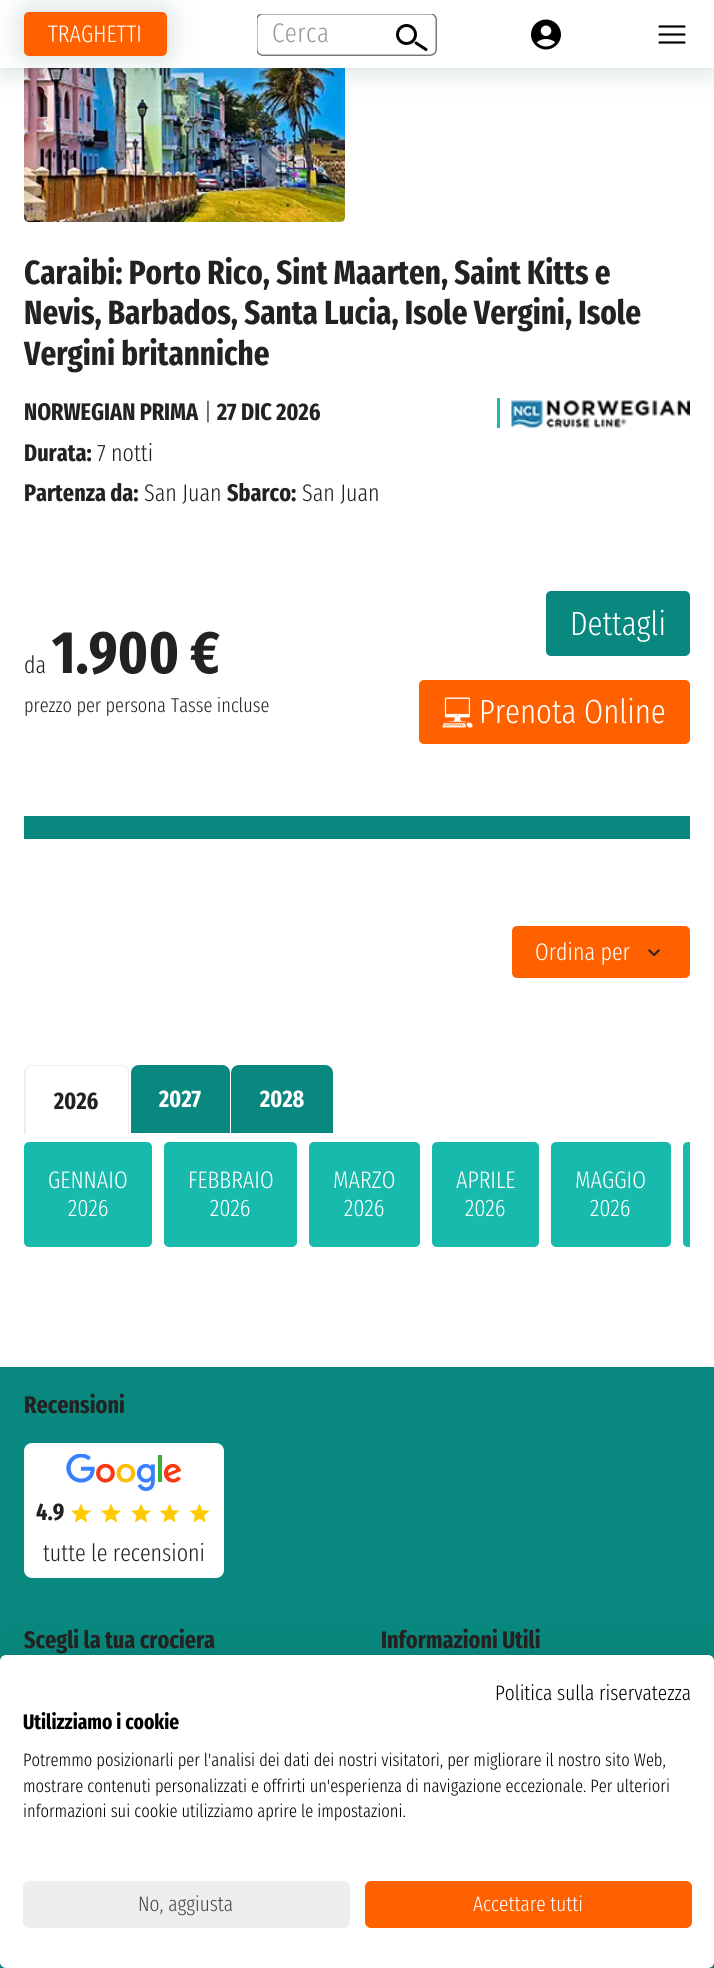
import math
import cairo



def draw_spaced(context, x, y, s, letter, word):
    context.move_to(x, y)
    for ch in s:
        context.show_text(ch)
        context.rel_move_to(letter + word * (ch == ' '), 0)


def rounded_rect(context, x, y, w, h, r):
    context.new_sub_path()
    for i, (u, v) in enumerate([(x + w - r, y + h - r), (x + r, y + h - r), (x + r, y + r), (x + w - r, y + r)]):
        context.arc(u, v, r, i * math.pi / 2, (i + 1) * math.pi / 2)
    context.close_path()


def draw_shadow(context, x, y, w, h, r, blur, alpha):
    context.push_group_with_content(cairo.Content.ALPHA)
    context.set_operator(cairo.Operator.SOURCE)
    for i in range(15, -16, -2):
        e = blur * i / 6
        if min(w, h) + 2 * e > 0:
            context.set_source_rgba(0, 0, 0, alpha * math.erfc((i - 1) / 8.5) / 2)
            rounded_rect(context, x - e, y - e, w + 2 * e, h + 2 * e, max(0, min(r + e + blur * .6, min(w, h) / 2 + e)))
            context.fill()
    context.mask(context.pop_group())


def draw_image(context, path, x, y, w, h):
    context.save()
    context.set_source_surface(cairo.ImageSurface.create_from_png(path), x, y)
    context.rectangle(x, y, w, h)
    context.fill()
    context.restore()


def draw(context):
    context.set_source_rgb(1, 1, 1)
    context.paint()
    draw_image(context, "images/2.png", 24, 68, 321, 154)
    context.set_source_rgb(0, 60 / 255, 60 / 255)
    draw_shadow(context, 0, 0, 714, 68, 0, 15, 0.2)
    context.set_source_rgb(1, 1, 1)
    context.rectangle(0, 0, 714, 68)
    context.fill()
    context.set_source_rgb(0, 60 / 255, 60 / 255)
    draw_shadow(context, 24, 12, 143, 44, 5, 15, 0.2)
    context.set_source_rgb(1, 96 / 255, 0)
    rounded_rect(context, 24, 12, 143, 44, 5)
    context.fill()
    context.save()
    context.rectangle(257, 14, 180, 42)
    context.clip()
    rounded_rect(context, 256.75, 13.75, 179.5, 41.5, 6.25)
    context.set_source_rgb(119 / 255, 119 / 255, 119 / 255)
    context.set_line_width(1.5)
    context.stroke()
    context.restore()
    context.arc(406.5, 34.5, 9, 0, 2 * math.pi)
    context.set_source_rgb(0, 0, 0)
    context.set_line_width(3)
    context.stroke()
    context.new_path()
    context.move_to(416, 43)
    context.line_to(426, 49.5)
    context.set_line_cap(cairo.LineCap.ROUND)
    context.stroke()
    draw_image(context, "images/1.png", 531, 19, 30, 31)
    context.new_path()
    context.move_to(659.5, 26.5)
    context.line_to(684.5, 26.5)
    context.move_to(659.5, 34.5)
    context.line_to(684.5, 34.5)
    context.move_to(659.5, 42.5)
    context.line_to(684.5, 42.5)
    context.set_line_width(2.2)
    context.set_line_join(cairo.LineJoin.ROUND)
    context.stroke()
    context.set_source_rgb(8 / 255, 136 / 255, 126 / 255)
    context.rectangle(24, 816, 666, 23)
    context.fill()
    context.set_source_rgb(24 / 255, 186 / 255, 173 / 255)
    context.rectangle(497, 398, 3, 30)
    context.fill()
    draw_image(context, "images/3.png", 511, 400, 179, 28)
    context.set_source_rgb(8 / 255, 136 / 255, 126 / 255)
    rounded_rect(context, 546, 591, 144, 65, 5)
    context.fill()
    context.set_source_rgb(1, 96 / 255, 0)
    rounded_rect(context, 419, 680, 271, 64, 5)
    context.fill()
    draw_image(context, "images/4.png", 442, 697, 31, 31)
    rounded_rect(context, 512, 926, 178, 52, 5)
    context.fill()
    draw_image(context, "images/5.png", 648, 949, 12, 8)
    context.set_source_rgb(238 / 255, 238 / 255, 238 / 255)
    context.set_fill_rule(cairo.FillRule.EVEN_ODD)
    context.new_path()
    context.move_to(31, 1065)
    context.line_to(122, 1065)
    context.curve_to(126, 1065, 129, 1068, 129, 1072)
    context.line_to(129, 1134)
    context.line_to(24, 1134)
    context.line_to(24, 1072)
    context.curve_to(24, 1068, 27, 1065, 31, 1065)
    context.close_path()
    context.move_to(31, 1066)
    context.line_to(122, 1066)
    context.curve_to(125, 1066, 128, 1069, 128, 1072)
    context.line_to(128, 1134)
    context.line_to(26, 1134)
    context.line_to(26, 1072)
    context.curve_to(26, 1069, 28, 1066, 31, 1066)
    context.close_path()
    context.fill()
    context.set_source_rgb(8 / 255, 136 / 255, 126 / 255)
    context.new_path()
    context.move_to(139, 1065)
    context.line_to(222, 1065)
    context.curve_to(226.5, 1065, 230, 1068.5, 230, 1073)
    context.line_to(230, 1133)
    context.line_to(131, 1133)
    context.line_to(131, 1073)
    context.curve_to(131, 1068.5, 134.5, 1065, 139, 1065)
    context.close_path()
    context.fill()
    context.new_path()
    context.move_to(239, 1065)
    context.line_to(325, 1065)
    context.curve_to(329.5, 1065, 333, 1068.5, 333, 1073)
    context.line_to(333, 1133)
    context.line_to(231, 1133)
    context.line_to(231, 1073)
    context.curve_to(231, 1068.5, 234.5, 1065, 239, 1065)
    context.close_path()
    context.fill()
    context.set_source_rgb(24 / 255, 186 / 255, 173 / 255)
    rounded_rect(context, 24, 1142, 128, 105, 5)
    context.fill()
    rounded_rect(context, 164, 1142, 133, 105, 5)
    context.fill()
    rounded_rect(context, 309, 1142, 111, 105, 5)
    context.fill()
    rounded_rect(context, 432, 1142, 107, 105, 5)
    context.fill()
    rounded_rect(context, 551, 1142, 120, 105, 5)
    context.fill()
    context.new_path()
    context.move_to(688, 1142)
    context.line_to(690, 1142)
    context.line_to(690, 1247)
    context.line_to(688, 1247)
    context.curve_to(685, 1247, 683, 1245, 683, 1242)
    context.line_to(683, 1147)
    context.curve_to(683, 1144, 685, 1142, 688, 1142)
    context.close_path()
    context.fill()
    context.set_source_rgb(8 / 255, 136 / 255, 126 / 255)
    context.rectangle(0, 1367, 714, 601)
    context.fill()
    context.set_source_rgb(1, 1, 1)
    rounded_rect(context, 24, 1443, 200, 135, 8)
    context.fill()
    draw_image(context, "images/6.png", 66, 1454, 116, 37)
    draw_image(context, "images/7.png", 71, 1503, 20, 20)
    draw_image(context, "images/7.png", 101, 1503, 20, 20)
    draw_image(context, "images/7.png", 131, 1503, 20, 20)
    draw_image(context, "images/8.png", 159, 1503, 21, 20)
    draw_image(context, "images/8.png", 189, 1503, 21, 20)
    context.set_source_rgb(0, 0, 0)
    draw_shadow(context, 0, 1655, 714, 313, 6, 18, 0.1)
    context.set_source_rgb(1, 1, 1)
    rounded_rect(context, 0, 1655, 714, 313, 6)
    context.fill()
    context.set_source_rgb(238 / 255, 238 / 255, 238 / 255)
    rounded_rect(context, 24, 1882, 325, 45, 5)
    context.fill_preserve()
    context.set_line_width(2)
    context.set_line_cap(cairo.LineCap.BUTT)
    context.set_line_join(cairo.LineJoin.MITER)
    context.stroke()
    context.set_source_rgb(1, 96 / 255, 0)
    rounded_rect(context, 366, 1882, 325, 45, 5)
    context.fill_preserve()
    context.stroke()
    context.select_font_face("Fira Sans Extra Condensed Light")
    context.set_font_size(24)
    context.set_source_rgb(1, 1, 1)
    context.move_to(48, 42)
    context.show_text("TRAGHETTI")
    context.set_font_size(27)
    context.set_source_rgb(153 / 255, 153 / 255, 153 / 255)
    draw_spaced(context, 272, 42, "Cerca", 0.5, 0)
    context.select_font_face("Fira Sans Extra Condensed", cairo.FontSlant.NORMAL, cairo.FontWeight.BOLD)
    context.set_font_size(33.6)
    context.set_source_rgb(34 / 255, 34 / 255, 34 / 255)
    context.move_to(24, 284)
    context.show_text("Caraibi: Porto Rico, Sint Maarten, Saint Kitts e")
    context.move_to(24, 324)
    context.show_text("Nevis, Barbados, Santa Lucia, Isole Vergini, Isole")
    context.move_to(24, 365)
    context.show_text("Vergini britanniche")
    context.set_font_size(24)
    context.move_to(24, 420)
    context.show_text("NORWEGIAN PRIMA")
    context.select_font_face("Fira Sans Extra Condensed Light")
    context.move_to(204, 420)
    context.show_text("|")
    context.select_font_face("Fira Sans Extra Condensed", cairo.FontSlant.NORMAL, cairo.FontWeight.BOLD)
    context.move_to(217, 420)
    context.show_text("27 DIC 2026")
    context.move_to(24, 461)
    context.show_text("Durata:")
    context.select_font_face("Fira Sans Extra Condensed Light")
    context.move_to(97, 461)
    context.show_text("7 notti")
    context.select_font_face("Fira Sans Extra Condensed", cairo.FontSlant.NORMAL, cairo.FontWeight.BOLD)
    context.move_to(24, 501)
    context.show_text("Partenza da:")
    context.select_font_face("Fira Sans Extra Condensed Light")
    context.move_to(144, 501)
    context.show_text("San Juan")
    context.select_font_face("Fira Sans Extra Condensed", cairo.FontSlant.NORMAL, cairo.FontWeight.BOLD)
    context.move_to(227, 501)
    context.show_text("Sbarco:")
    context.select_font_face("Fira Sans Extra Condensed Light")
    context.move_to(302, 501)
    context.show_text("San Juan")
    context.move_to(24, 673)
    context.show_text("da")
    context.select_font_face("Fira Sans Extra Condensed", cairo.FontSlant.NORMAL, cairo.FontWeight.BOLD)
    context.set_font_size(60)
    context.move_to(52, 673)
    context.show_text("1.900 €")
    context.select_font_face("Fira Sans Extra Condensed Light")
    context.set_font_size(20)
    context.move_to(24, 712)
    context.show_text("prezzo per persona")
    context.move_to(171, 712)
    context.show_text("Tasse incluse")
    context.set_font_size(33.6)
    context.set_source_rgb(1, 1, 1)
    context.move_to(570, 635)
    context.show_text("Dettagli")
    context.move_to(479, 723)
    context.show_text("Prenota Online")
    context.set_font_size(24)
    context.move_to(535, 960)
    context.show_text("Ordina per")
    context.select_font_face("Fira Sans Extra Condensed", cairo.FontSlant.NORMAL, cairo.FontWeight.BOLD)
    context.set_source_rgb(34 / 255, 34 / 255, 34 / 255)
    context.move_to(54, 1109)
    context.show_text("2026")
    context.set_source_rgb(1, 1, 1)
    context.move_to(159, 1107)
    context.show_text("2027")
    context.move_to(260, 1107)
    context.show_text("2028")
    context.select_font_face("Fira Sans Extra Condensed Light")
    context.move_to(48, 1188)
    context.show_text("GENNAIO")
    context.move_to(68, 1216)
    context.show_text("2026")
    context.move_to(188, 1188)
    context.show_text("FEBBRAIO")
    context.move_to(210, 1216)
    context.show_text("2026")
    context.move_to(333, 1188)
    context.show_text("MARZO")
    context.move_to(344, 1216)
    context.show_text("2026")
    context.move_to(456, 1188)
    context.show_text("APRILE")
    context.move_to(465, 1216)
    context.show_text("2026")
    context.move_to(575, 1188)
    context.show_text("MAGGIO")
    context.move_to(590, 1216)
    context.show_text("2026")
    context.select_font_face("Fira Sans Extra Condensed", cairo.FontSlant.NORMAL, cairo.FontWeight.BOLD)
    context.set_source_rgb(34 / 255, 34 / 255, 34 / 255)
    context.move_to(24, 1413)
    context.show_text("Recensioni")
    context.move_to(36, 1520)
    context.show_text("4.9")
    context.select_font_face("Fira Sans Extra Condensed Light")
    context.move_to(43, 1561)
    context.show_text("tutte le recensioni")
    context.select_font_face("Fira Sans Extra Condensed", cairo.FontSlant.NORMAL, cairo.FontWeight.BOLD)
    context.move_to(24, 1648)
    context.show_text("Scegli la tua crociera")
    context.move_to(381, 1648)
    context.show_text("Informazioni Utili")
    context.select_font_face("Fira Sans Extra Condensed Light")
    context.set_font_size(21)
    context.set_source_rgb(0, 0, 0)
    context.move_to(495, 1700)
    context.show_text("Politica sulla riservatezza")
    context.select_font_face("Fira Sans Extra Condensed", cairo.FontSlant.NORMAL, cairo.FontWeight.BOLD)
    context.move_to(23, 1729)
    context.show_text("Utilizziamo i cookie")
    context.select_font_face("Fira Sans Extra Condensed Light")
    context.set_font_size(18)
    context.move_to(23, 1766)
    context.show_text("Potremmo posizionarli per l'analisi dei dati dei nostri visitatori, per migliorare il nostro sito Web,")
    context.move_to(23, 1792)
    context.show_text("mostrare contenuti personalizzati e offrirti un'esperienza di navigazione eccezionale. Per ulteriori")
    context.move_to(23, 1817)
    context.show_text("informazioni sui cookie utilizziamo aprire le impostazioni.")
    context.set_font_size(21)
    context.set_source_rgb(74 / 255, 74 / 255, 74 / 255)
    context.move_to(138, 1911)
    context.show_text("No, aggiusta")
    context.set_source_rgb(1, 1, 1)
    context.move_to(473, 1911)
    context.show_text("Accettare tutti")


surface = cairo.ImageSurface(cairo.Format.RGB24, 714, 1968)
context = cairo.Context(surface)
options = cairo.FontOptions()
options.set_hint_metrics(cairo.HintMetrics.OFF)
options.set_hint_style(cairo.HintStyle.NONE)
context.set_font_options(options)
context.set_miter_limit(4)
draw(context)
surface.write_to_png("out.png")
